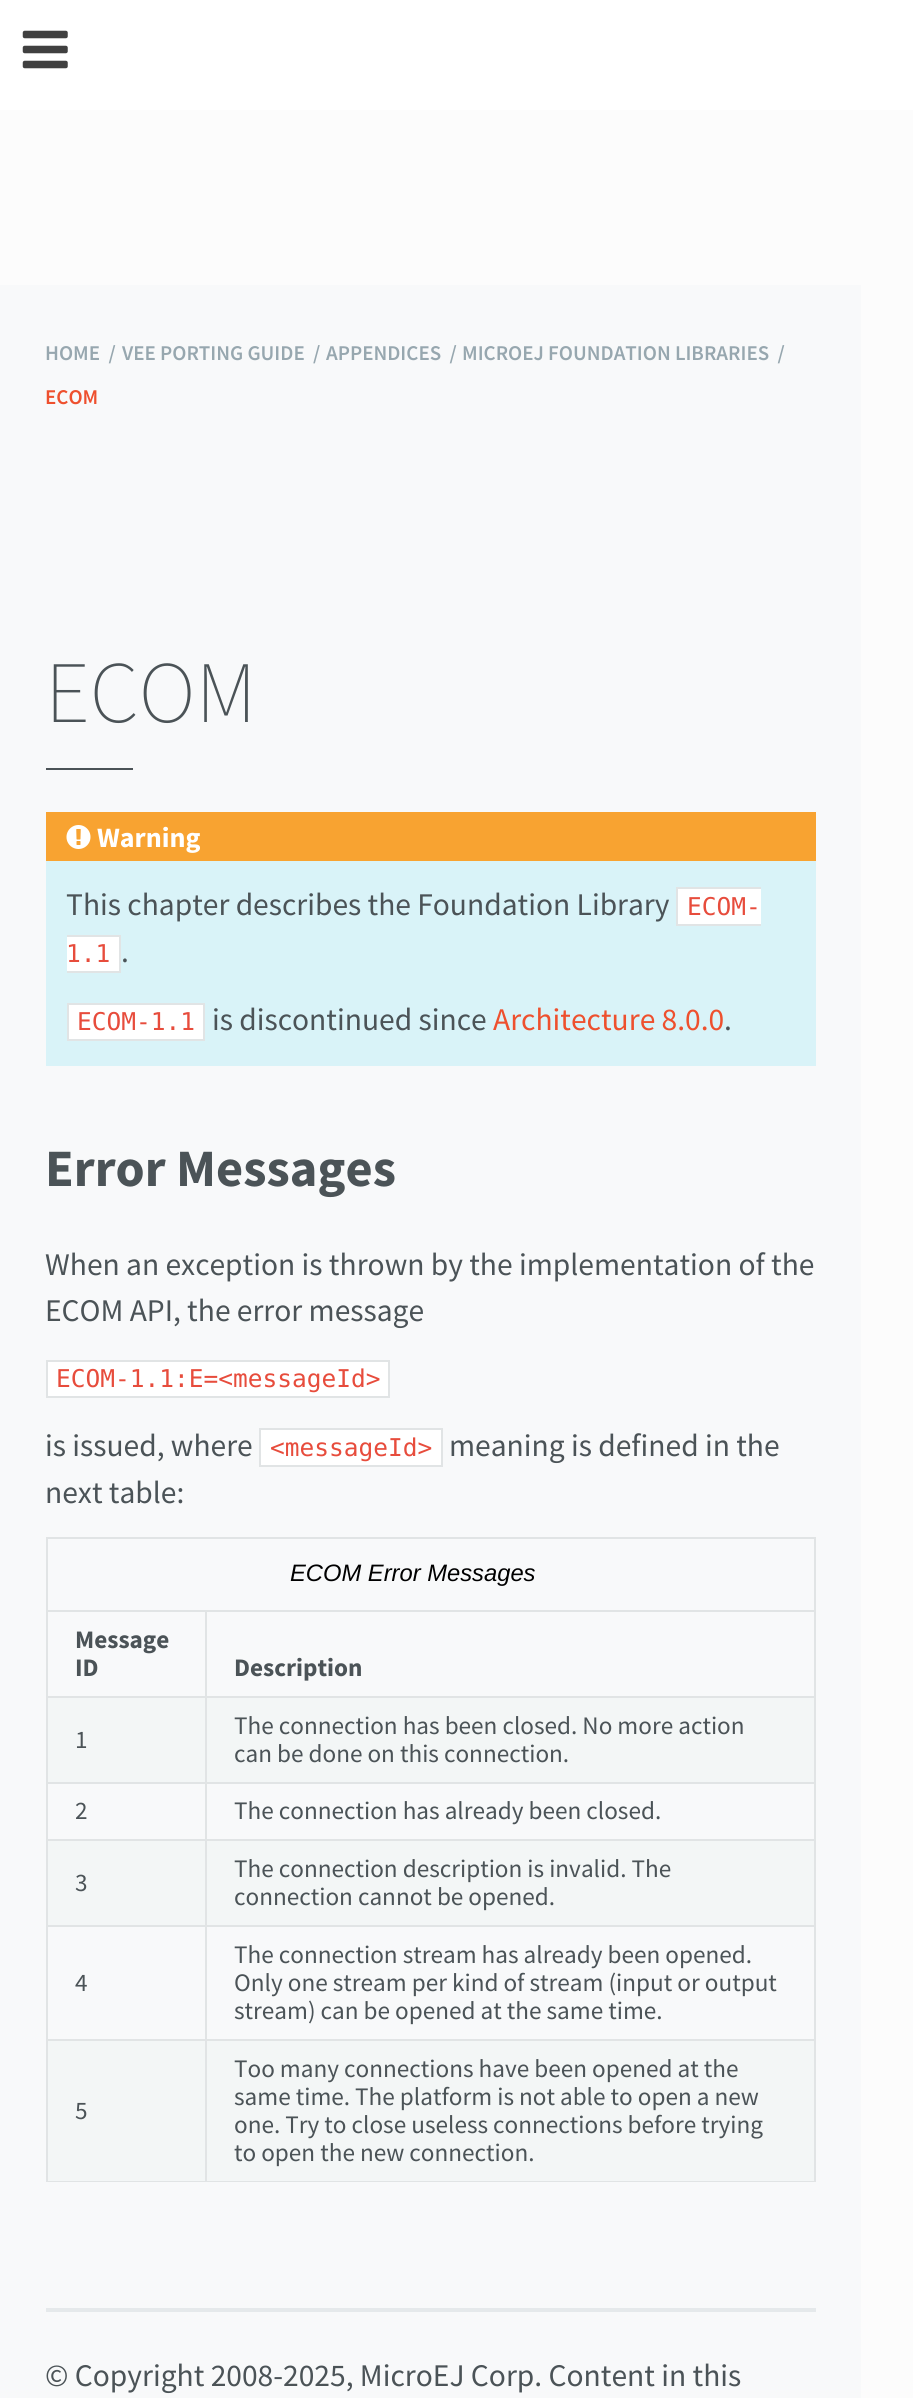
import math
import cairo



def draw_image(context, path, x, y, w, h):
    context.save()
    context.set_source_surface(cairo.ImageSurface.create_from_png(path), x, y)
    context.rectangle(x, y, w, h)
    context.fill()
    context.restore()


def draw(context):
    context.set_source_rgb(252 / 255, 252 / 255, 252 / 255)
    context.paint()
    context.set_source_rgb(1, 1, 1)
    context.rectangle(0, 0, 913, 110)
    context.fill()
    draw_image(context, "images/1.png", 22, 30, 46, 39)
    context.set_source_rgb(248 / 255, 249 / 255, 250 / 255)
    context.rectangle(0, 285, 861, 2113)
    context.fill()
    context.set_source_rgb(75 / 255, 83 / 255, 87 / 255)
    context.rectangle(46, 768, 87, 2)
    context.fill()
    context.set_source_rgb(217 / 255, 243 / 255, 248 / 255)
    context.rectangle(46, 861, 770, 205)
    context.fill()
    context.set_source_rgb(248 / 255, 163 / 255, 49 / 255)
    context.rectangle(46, 812, 770, 49)
    context.fill()
    draw_image(context, "images/2.png", 66, 825, 25, 24)
    context.set_source_rgb(1, 1, 1)
    context.rectangle(678, 889, 83, 35)
    context.fill()
    context.set_source_rgb(225 / 255, 228 / 255, 229 / 255)
    context.rectangle(676, 887, 85, 2)
    context.fill()
    context.rectangle(676, 924, 85, 2)
    context.fill()
    context.rectangle(676, 887, 2, 39)
    context.fill()
    context.set_source_rgb(1, 1, 1)
    context.rectangle(67, 937, 52, 34)
    context.fill()
    context.set_source_rgb(225 / 255, 228 / 255, 229 / 255)
    context.rectangle(67, 935, 54, 2)
    context.fill()
    context.rectangle(119, 935, 2, 38)
    context.fill()
    context.rectangle(67, 971, 54, 2)
    context.fill()
    context.set_source_rgb(1, 1, 1)
    context.rectangle(68, 1004, 136, 36)
    context.fill_preserve()
    context.set_source_rgb(225 / 255, 228 / 255, 229 / 255)
    context.stroke()
    context.set_source_rgb(1, 1, 1)
    context.rectangle(47, 1361, 342, 36)
    context.fill_preserve()
    context.set_source_rgb(225 / 255, 228 / 255, 229 / 255)
    context.stroke()
    context.set_source_rgb(1, 1, 1)
    context.rectangle(260, 1429, 182, 37)
    context.fill_preserve()
    context.set_source_rgb(225 / 255, 228 / 255, 229 / 255)
    context.stroke()
    context.rectangle(46, 1537, 770, 2)
    context.fill()
    context.rectangle(814, 1537, 2, 645)
    context.fill()
    context.rectangle(46, 2181, 770, 1)
    context.fill()
    context.rectangle(46, 1537, 2, 645)
    context.fill()
    context.rectangle(205, 1610, 611, 2)
    context.fill()
    context.rectangle(205, 2039, 2, 143)
    context.fill()
    context.rectangle(205, 2039, 611, 2)
    context.fill()
    context.rectangle(205, 1925, 2, 116)
    context.fill()
    context.rectangle(205, 1925, 611, 2)
    context.fill()
    context.rectangle(205, 1839, 2, 88)
    context.fill()
    context.rectangle(205, 1839, 611, 2)
    context.fill()
    context.rectangle(205, 1782, 2, 59)
    context.fill()
    context.rectangle(205, 1782, 611, 2)
    context.fill()
    context.rectangle(205, 1696, 2, 87)
    context.fill()
    context.rectangle(205, 1696, 611, 2)
    context.fill()
    context.rectangle(205, 1610, 2, 88)
    context.fill()
    context.rectangle(46, 1610, 161, 2)
    context.fill()
    context.rectangle(46, 1696, 161, 2)
    context.fill()
    context.set_source_rgb(243 / 255, 246 / 255, 246 / 255)
    context.rectangle(48, 1698, 157, 84)
    context.fill()
    context.set_source_rgb(225 / 255, 228 / 255, 229 / 255)
    context.rectangle(46, 1782, 161, 2)
    context.fill()
    context.set_source_rgb(243 / 255, 246 / 255, 246 / 255)
    context.rectangle(207, 1698, 607, 84)
    context.fill()
    context.set_source_rgb(225 / 255, 228 / 255, 229 / 255)
    context.rectangle(46, 1839, 161, 2)
    context.fill()
    context.set_source_rgb(243 / 255, 246 / 255, 246 / 255)
    context.rectangle(48, 1841, 157, 84)
    context.fill()
    context.set_source_rgb(225 / 255, 228 / 255, 229 / 255)
    context.rectangle(46, 1925, 161, 2)
    context.fill()
    context.set_source_rgb(243 / 255, 246 / 255, 246 / 255)
    context.rectangle(207, 1841, 607, 84)
    context.fill()
    context.set_source_rgb(225 / 255, 228 / 255, 229 / 255)
    context.rectangle(46, 2039, 161, 2)
    context.fill()
    context.set_source_rgb(243 / 255, 246 / 255, 246 / 255)
    context.rectangle(48, 2041, 157, 140)
    context.fill()
    context.rectangle(207, 2041, 607, 140)
    context.fill()
    context.set_source_rgb(229 / 255, 233 / 255, 235 / 255)
    context.rectangle(46, 2308, 770, 4)
    context.fill()
    context.select_font_face("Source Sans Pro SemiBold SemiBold")
    context.set_font_size(21)
    context.set_source_rgb(151 / 255, 167 / 255, 175 / 255)
    context.move_to(45, 360)
    context.show_text("HOME  /")
    context.move_to(122, 360)
    context.show_text("VEE PORTING GUIDE  /")
    context.move_to(326, 360)
    context.show_text("APPENDICES  /")
    context.move_to(462, 360)
    context.show_text("MICROEJ FOUNDATION LIBRARIES  /")
    context.set_source_rgb(238 / 255, 80 / 255, 46 / 255)
    context.move_to(45, 404)
    context.show_text("ECOM")
    context.select_font_face("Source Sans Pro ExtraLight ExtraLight")
    context.set_font_size(87.5)
    context.set_source_rgb(75 / 255, 83 / 255, 87 / 255)
    context.move_to(45, 722)
    context.show_text("ECOM")
    context.select_font_face("Source Sans Pro", cairo.FontSlant.NORMAL, cairo.FontWeight.BOLD)
    context.set_font_size(28)
    context.set_source_rgb(1, 1, 1)
    context.move_to(97, 847)
    context.show_text("Warning")
    context.select_font_face("Source Sans Pro")
    context.set_font_size(31.5)
    context.set_source_rgb(75 / 255, 83 / 255, 87 / 255)
    context.move_to(66, 915)
    context.show_text("This chapter describes the Foundation Library")
    context.select_font_face("DejaVu Sans Mono")
    context.set_font_size(24.5)
    context.set_source_rgb(231 / 255, 76 / 255, 60 / 255)
    context.move_to(687, 915)
    context.show_text("ECOM-")
    context.move_to(66, 962)
    context.show_text("1.1")
    context.select_font_face("Source Sans Pro")
    context.set_font_size(31.5)
    context.set_source_rgb(75 / 255, 83 / 255, 87 / 255)
    context.move_to(121, 962)
    context.show_text(".")
    context.select_font_face("DejaVu Sans Mono")
    context.set_font_size(24.5)
    context.set_source_rgb(231 / 255, 76 / 255, 60 / 255)
    context.move_to(77, 1030)
    context.show_text("ECOM-1.1")
    context.select_font_face("Source Sans Pro")
    context.set_font_size(31.5)
    context.set_source_rgb(75 / 255, 83 / 255, 87 / 255)
    context.move_to(212, 1030)
    context.show_text("is discontinued since")
    context.set_source_rgb(238 / 255, 80 / 255, 46 / 255)
    context.move_to(493, 1030)
    context.show_text("Architecture 8.0.0")
    context.set_source_rgb(75 / 255, 83 / 255, 87 / 255)
    context.move_to(724, 1030)
    context.show_text(".")
    context.select_font_face("Source Sans Pro", cairo.FontSlant.NORMAL, cairo.FontWeight.BOLD)
    context.set_font_size(52.5)
    context.move_to(45, 1186)
    context.show_text("Error Messages")
    context.select_font_face("Source Sans Pro")
    context.set_font_size(31.5)
    context.move_to(45, 1275)
    context.show_text("When an exception is thrown by the implementation of the")
    context.move_to(45, 1321)
    context.show_text("ECOM API, the error message")
    context.select_font_face("DejaVu Sans Mono")
    context.set_font_size(24.5)
    context.set_source_rgb(231 / 255, 76 / 255, 60 / 255)
    context.move_to(56, 1387)
    context.show_text("ECOM-1.1:E=<messageId>")
    context.select_font_face("Source Sans Pro")
    context.set_font_size(31.5)
    context.set_source_rgb(75 / 255, 83 / 255, 87 / 255)
    context.move_to(45, 1456)
    context.show_text("is issued, where")
    context.select_font_face("DejaVu Sans Mono")
    context.set_font_size(24.5)
    context.set_source_rgb(231 / 255, 76 / 255, 60 / 255)
    context.move_to(270, 1456)
    context.show_text("<messageId>")
    context.select_font_face("Source Sans Pro")
    context.set_font_size(31.5)
    context.set_source_rgb(75 / 255, 83 / 255, 87 / 255)
    context.move_to(449, 1456)
    context.show_text("meaning is defined in the")
    context.move_to(45, 1503)
    context.show_text("next table:")
    context.select_font_face("Liberation Sans", cairo.FontSlant.ITALIC)
    context.set_font_size(23.75)
    context.set_source_rgb(0, 0, 0)
    context.move_to(290, 1581)
    context.show_text("ECOM Error Messages")
    context.select_font_face("Source Sans Pro", cairo.FontSlant.NORMAL, cairo.FontWeight.BOLD)
    context.set_font_size(25.2)
    context.set_source_rgb(75 / 255, 83 / 255, 87 / 255)
    context.move_to(75, 1648)
    context.show_text("Message")
    context.move_to(75, 1676)
    context.show_text("ID")
    context.move_to(234, 1676)
    context.show_text("Description")
    context.select_font_face("Source Sans Pro")
    context.move_to(75, 1748)
    context.show_text("1")
    context.move_to(234, 1734)
    context.show_text("The connection has been closed. No more action")
    context.move_to(234, 1762)
    context.show_text("can be done on this connection.")
    context.move_to(75, 1819)
    context.show_text("2")
    context.move_to(234, 1819)
    context.show_text("The connection has already been closed.")
    context.move_to(75, 1891)
    context.show_text("3")
    context.move_to(234, 1877)
    context.show_text("The connection description is invalid. The")
    context.move_to(234, 1905)
    context.show_text("connection cannot be opened.")
    context.move_to(75, 1991)
    context.show_text("4")
    context.move_to(234, 1963)
    context.show_text("The connection stream has already been opened.")
    context.move_to(234, 1991)
    context.show_text("Only one stream per kind of stream (input or output")
    context.move_to(234, 2019)
    context.show_text("stream) can be opened at the same time.")
    context.move_to(75, 2119)
    context.show_text("5")
    context.move_to(234, 2077)
    context.show_text("Too many connections have been opened at the")
    context.move_to(234, 2105)
    context.show_text("same time. The platform is not able to open a new")
    context.move_to(234, 2133)
    context.show_text("one. Try to close useless connections before trying")
    context.move_to(234, 2161)
    context.show_text("to open the new connection.")
    context.set_font_size(31.5)
    context.move_to(45, 2386)
    context.show_text("© Copyright 2008-2025, MicroEJ Corp. Content in this")


surface = cairo.ImageSurface(cairo.Format.RGB24, 913, 2398)
context = cairo.Context(surface)
options = cairo.FontOptions()
options.set_hint_metrics(cairo.HintMetrics.OFF)
options.set_hint_style(cairo.HintStyle.NONE)
context.set_font_options(options)
context.set_miter_limit(4)
draw(context)
surface.write_to_png("out.png")
